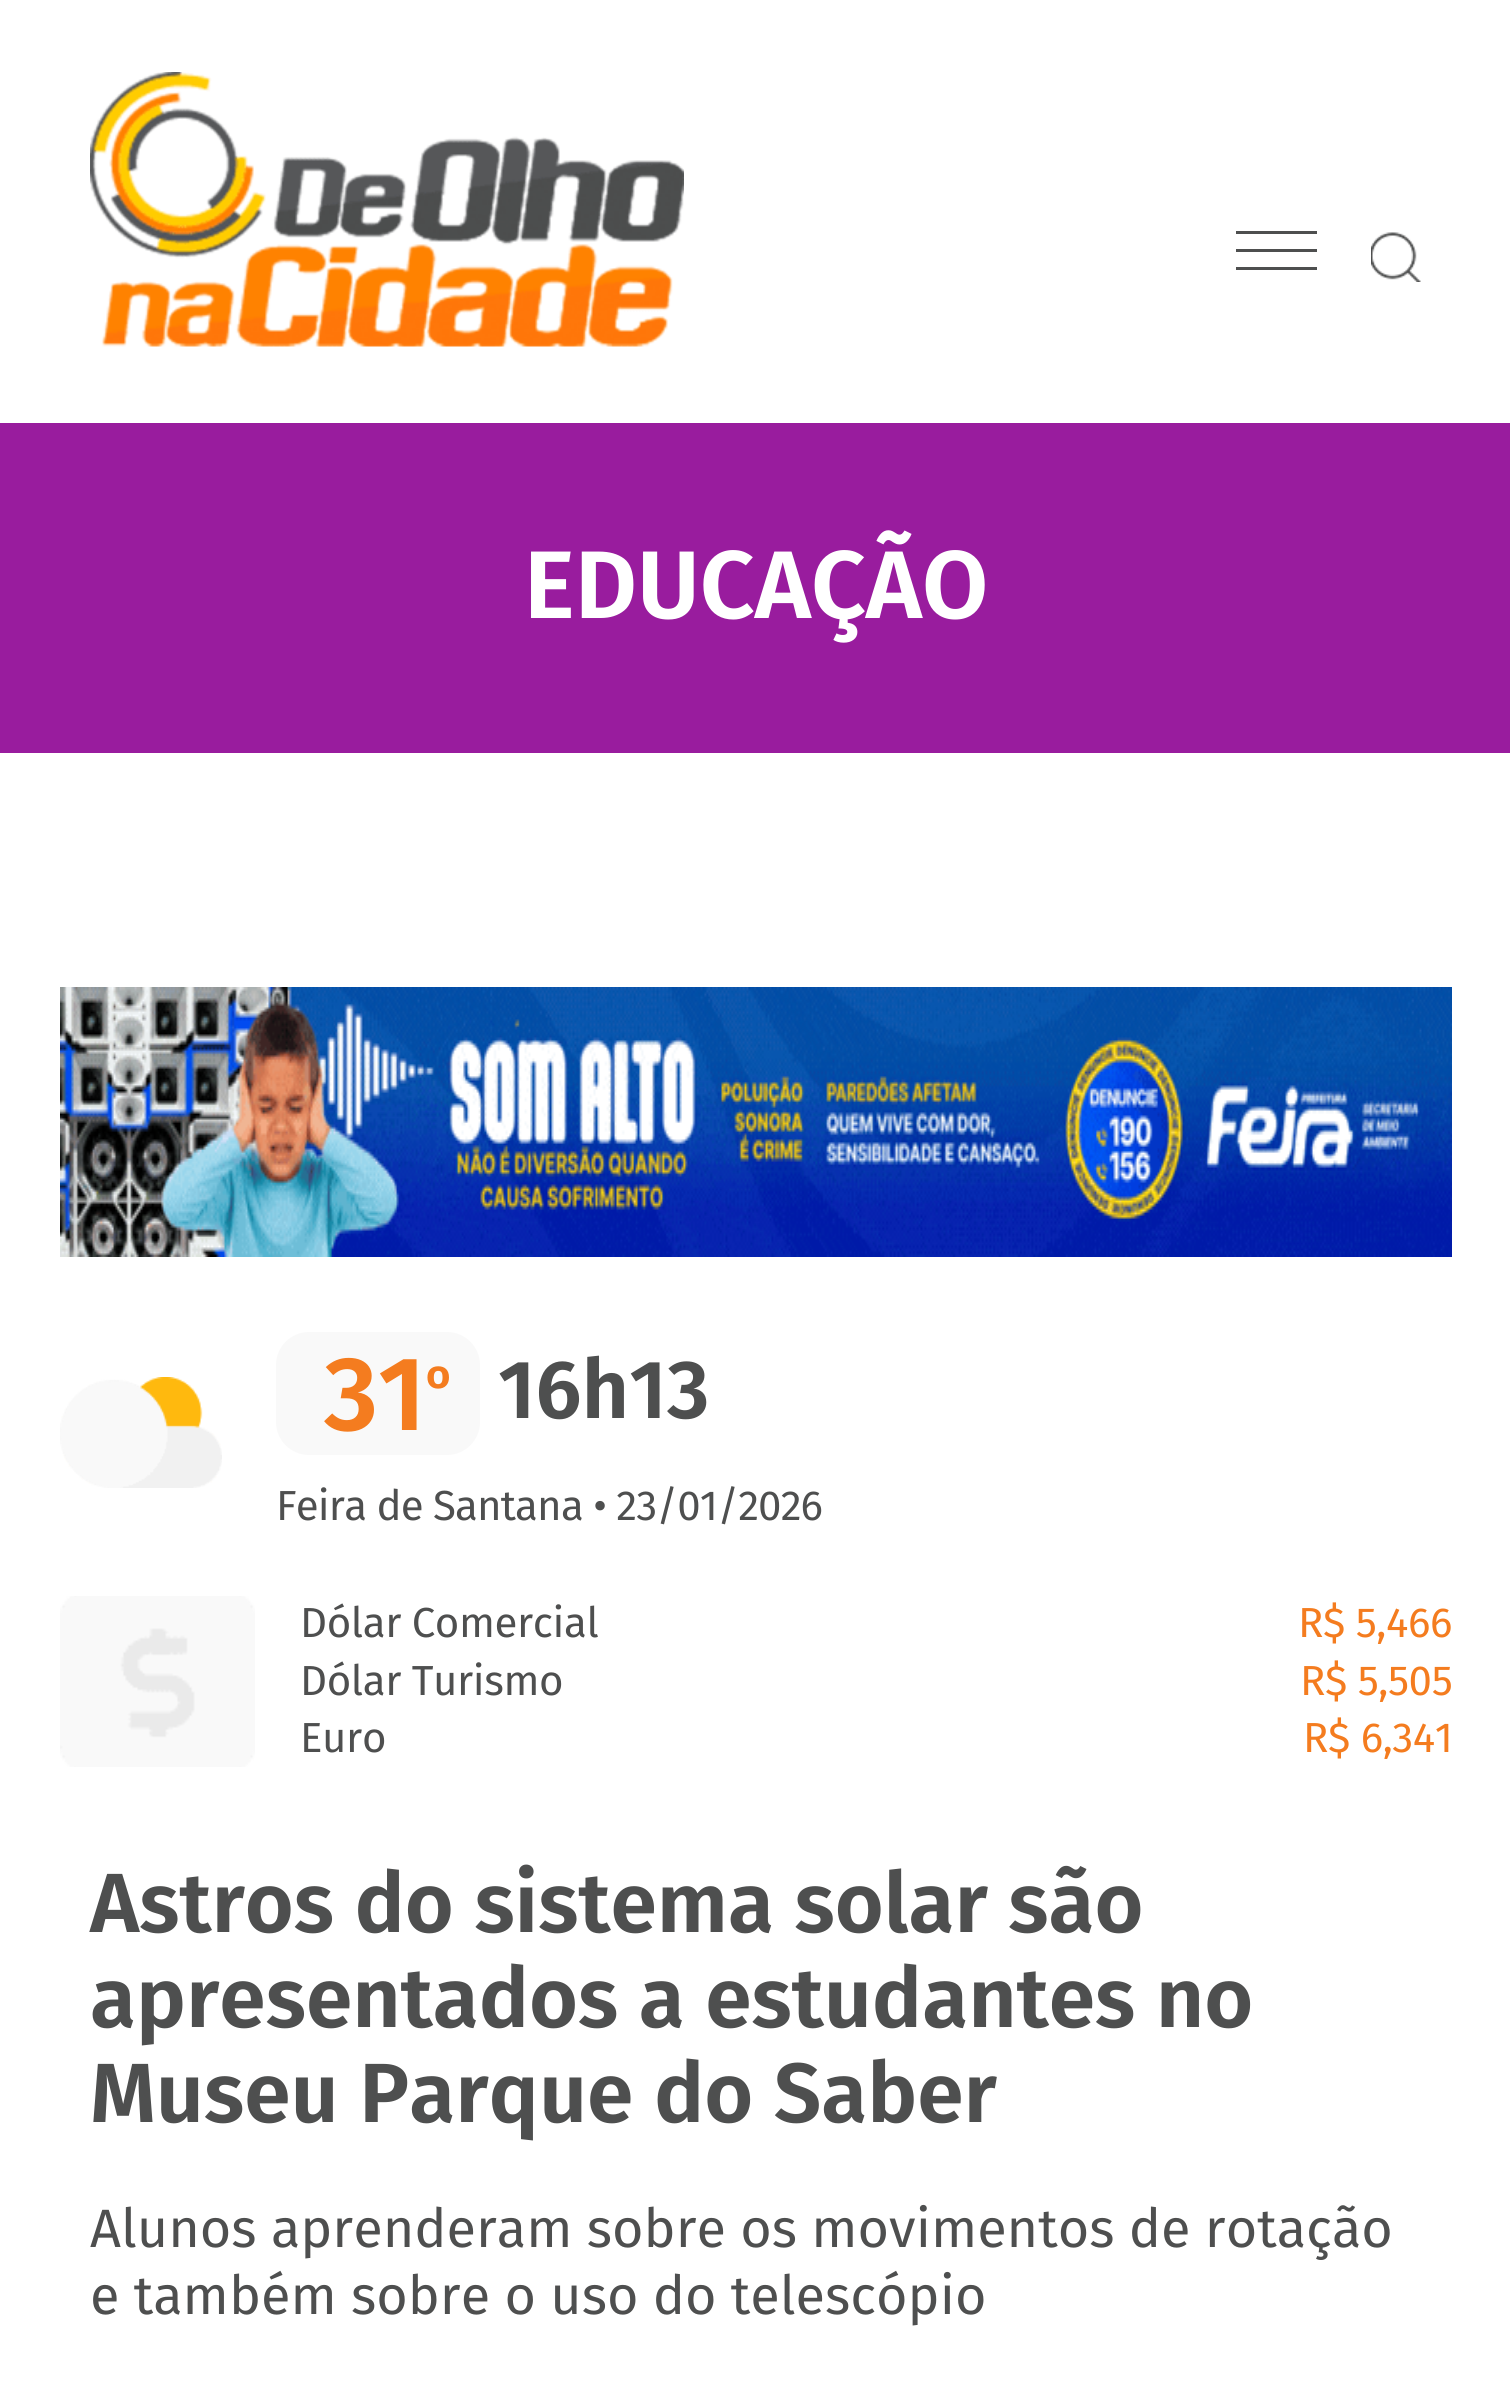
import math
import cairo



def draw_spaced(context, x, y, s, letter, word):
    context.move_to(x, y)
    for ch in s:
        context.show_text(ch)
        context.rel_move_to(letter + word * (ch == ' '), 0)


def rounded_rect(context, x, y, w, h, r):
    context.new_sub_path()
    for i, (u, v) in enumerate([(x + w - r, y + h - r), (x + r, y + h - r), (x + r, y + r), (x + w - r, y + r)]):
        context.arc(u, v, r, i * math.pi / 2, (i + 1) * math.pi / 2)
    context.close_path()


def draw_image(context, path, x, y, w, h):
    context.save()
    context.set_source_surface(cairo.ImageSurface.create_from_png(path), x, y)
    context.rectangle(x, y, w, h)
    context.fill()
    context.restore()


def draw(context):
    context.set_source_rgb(1, 1, 1)
    context.paint()
    draw_image(context, "images/1.png", 90, 72, 594, 275)
    context.set_source_rgb(78 / 255, 79 / 255, 79 / 255)
    context.rectangle(1236, 267, 81, 3)
    context.fill()
    context.rectangle(1236, 249, 81, 3)
    context.fill()
    context.rectangle(1236, 231, 81, 3)
    context.fill()
    draw_image(context, "images/2.png", 1371, 232, 50, 50)
    context.set_source_rgb(153 / 255, 28 / 255, 158 / 255)
    context.rectangle(0, 423, 1510, 330)
    context.fill()
    draw_image(context, "images/3.png", 60, 987, 1392, 270)
    draw_image(context, "images/4.png", 60, 1377, 162, 111)
    context.set_source_rgb(249 / 255, 249 / 255, 249 / 255)
    rounded_rect(context, 276, 1332, 204, 123, 33)
    context.fill()
    draw_image(context, "images/5.png", 60, 1596, 195, 171)
    context.select_font_face("Fira Sans SemiBold")
    context.set_font_size(96)
    context.set_source_rgb(1, 1, 1)
    context.move_to(524, 618)
    context.show_text("EDUCAÇÃO")
    context.set_font_size(105)
    context.set_source_rgb(244 / 255, 124 / 255, 31 / 255)
    context.move_to(324, 1430)
    context.show_text("31")
    context.select_font_face("Liberation Sans", cairo.FontSlant.NORMAL, cairo.FontWeight.BOLD)
    context.set_font_size(66)
    context.move_to(426, 1412)
    context.show_text("º")
    context.select_font_face("Fira Sans SemiBold")
    context.set_font_size(82.5)
    context.set_source_rgb(78 / 255, 79 / 255, 79 / 255)
    context.move_to(498, 1418)
    context.show_text("16h13")
    context.select_font_face("Fira Sans")
    context.set_font_size(42)
    draw_spaced(context, 276, 1520, "Feira de Santana • 23/01/2026", -0.85, 0)
    draw_spaced(context, 300, 1637, "Dólar Comercial", -0.4, 0)
    context.set_source_rgb(244 / 255, 124 / 255, 31 / 255)
    draw_spaced(context, 1298, 1637, "R$ 5,466", -0.4, 0)
    context.set_source_rgb(78 / 255, 79 / 255, 79 / 255)
    draw_spaced(context, 300, 1695, "Dólar Turismo", -0.4, 0)
    context.set_source_rgb(244 / 255, 124 / 255, 31 / 255)
    draw_spaced(context, 1300, 1695, "R$ 5,505", -0.4, 0)
    context.set_source_rgb(78 / 255, 79 / 255, 79 / 255)
    draw_spaced(context, 300, 1752, "Euro", -0.4, 0)
    context.set_source_rgb(244 / 255, 124 / 255, 31 / 255)
    draw_spaced(context, 1303, 1752, "R$ 6,341", -0.4, 0)
    context.select_font_face("Fira Sans SemiBold")
    context.set_font_size(84)
    context.set_source_rgb(78 / 255, 79 / 255, 79 / 255)
    context.move_to(90, 1932)
    context.show_text("Astros do sistema solar são")
    context.move_to(90, 2027)
    context.show_text("apresentados a estudantes no")
    context.move_to(90, 2122)
    context.show_text("Museu Parque do Saber")
    context.select_font_face("Fira Sans")
    context.set_font_size(54)
    context.move_to(90, 2247)
    context.show_text("Alunos aprenderam sobre os movimentos de rotação")
    context.move_to(90, 2314)
    context.show_text("e também sobre o uso do telescópio")


surface = cairo.ImageSurface(cairo.Format.RGB24, 1510, 2390)
context = cairo.Context(surface)
options = cairo.FontOptions()
options.set_hint_metrics(cairo.HintMetrics.OFF)
options.set_hint_style(cairo.HintStyle.NONE)
context.set_font_options(options)
context.set_miter_limit(4)
draw(context)
surface.write_to_png("out.png")
